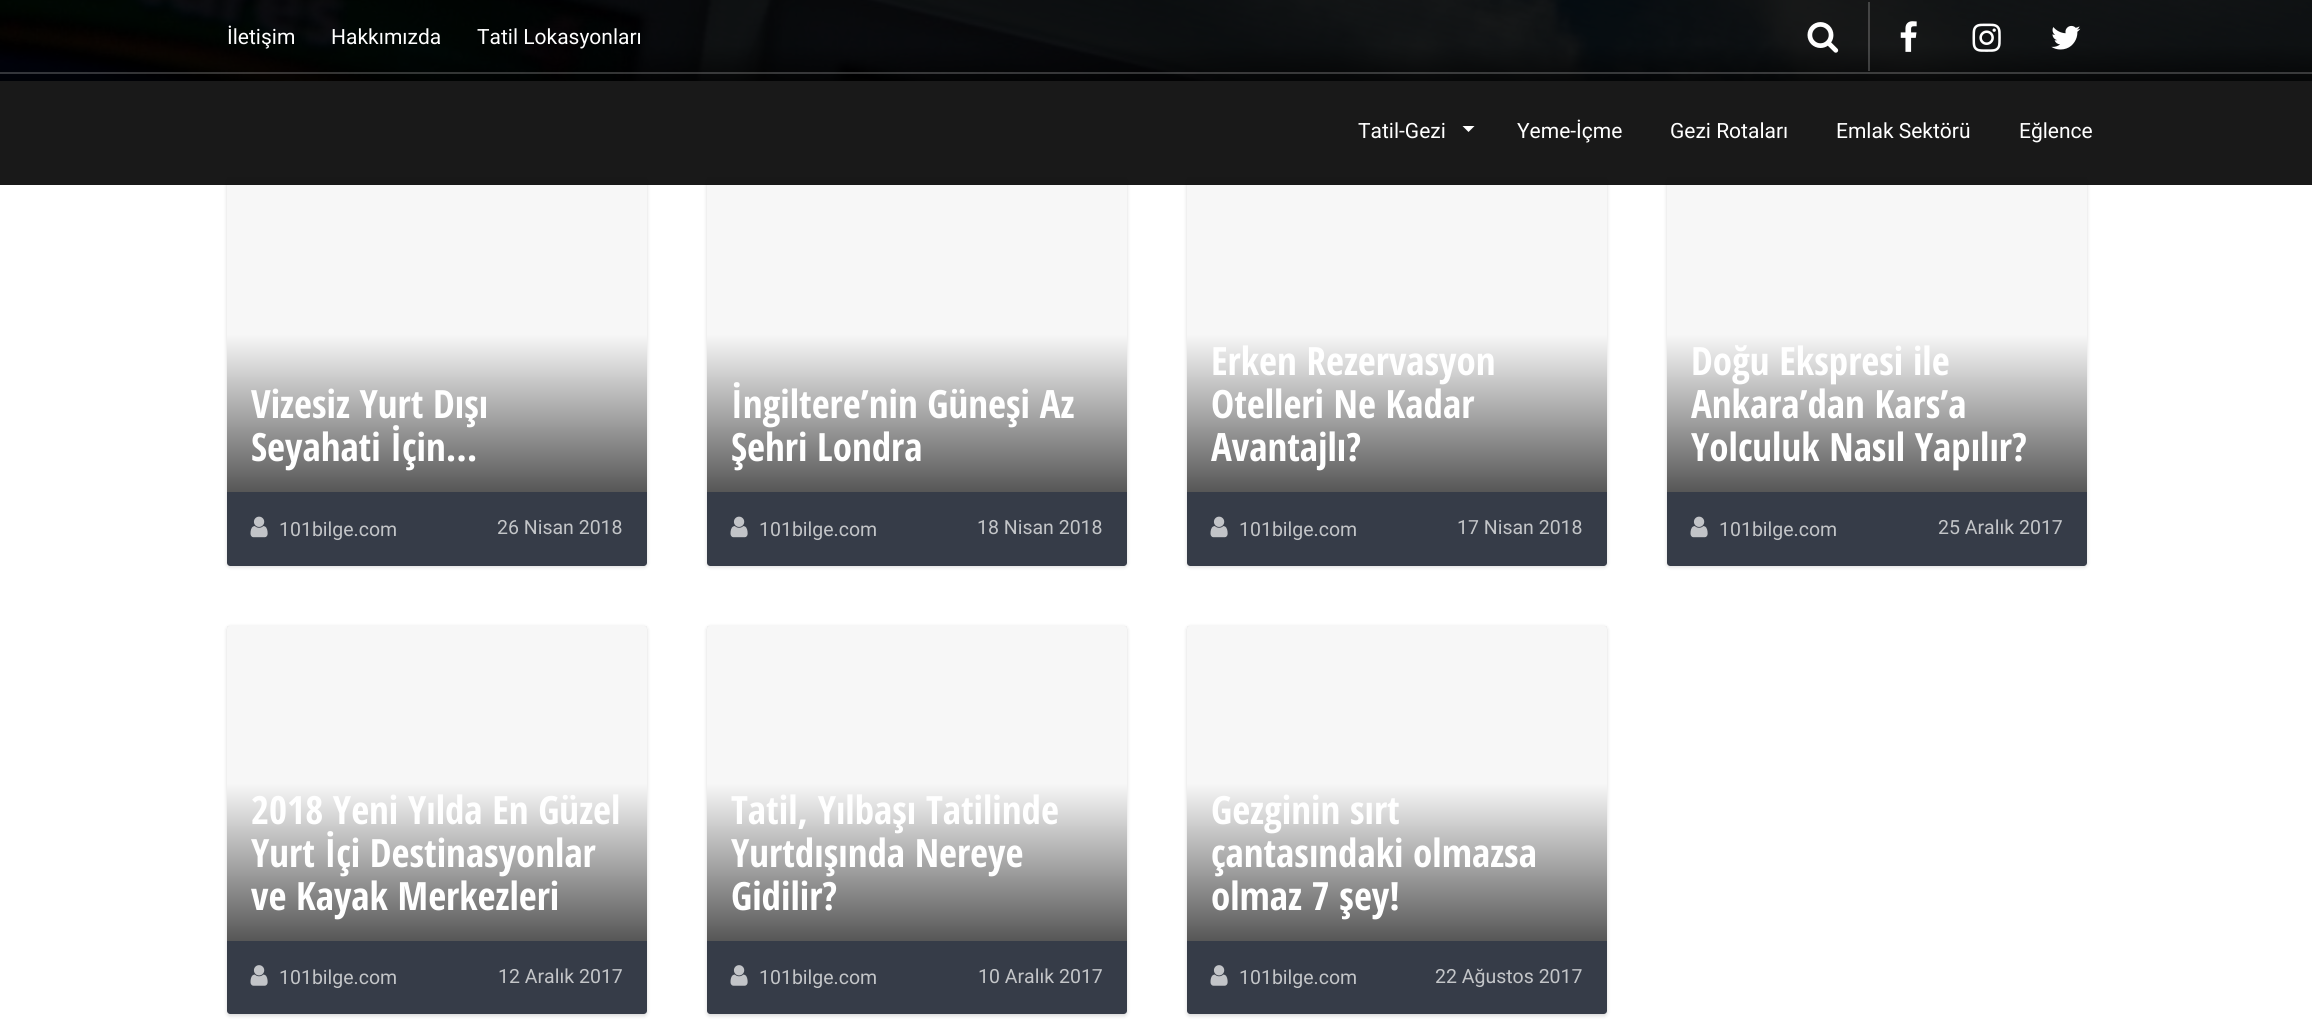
import math
import cairo



def rounded_rect(context, x, y, w, h, r):
    context.new_sub_path()
    for i, (u, v) in enumerate([(x + w - r, y + h - r), (x + r, y + h - r), (x + r, y + r), (x + w - r, y + r)]):
        context.arc(u, v, r, i * math.pi / 2, (i + 1) * math.pi / 2)
    context.close_path()


def draw_shadow(context, x, y, w, h, r, blur, alpha):
    context.push_group_with_content(cairo.Content.ALPHA)
    context.set_operator(cairo.Operator.SOURCE)
    for i in range(15, -16, -2):
        e = blur * i / 6
        if min(w, h) + 2 * e > 0:
            context.set_source_rgba(0, 0, 0, alpha * math.erfc((i - 1) / 8.5) / 2)
            rounded_rect(context, x - e, y - e, w + 2 * e, h + 2 * e, max(0, min(r + e + blur * .6, min(w, h) / 2 + e)))
            context.fill()
    context.mask(context.pop_group())


def draw_image(context, path, x, y, w, h):
    context.save()
    context.set_source_surface(cairo.ImageSurface.create_from_png(path), x, y)
    context.rectangle(x, y, w, h)
    context.fill()
    context.restore()


def draw(context):
    context.set_source_rgb(1, 1, 1)
    context.paint()
    draw_image(context, "images/1.png", 0, 0, 2312, 81)
    context.set_source_rgb(0, 0, 0)
    draw_shadow(context, 227, 179, 420, 388, 3, 2, 0.15)
    context.set_source_rgb(1, 1, 1)
    rounded_rect(context, 227, 177, 420, 389, 3)
    context.fill()
    gradient = cairo.LinearGradient(437, 177, 437, 492)
    gradient.add_color_stop_rgba(0.5, 0, 0, 0, 0.03)
    gradient.add_color_stop_rgba(1, 0, 0, 0, 0.66)
    context.set_source(gradient)
    context.rectangle(227, 177, 420, 315)
    context.fill()
    context.set_source_rgb(0, 0, 0)
    draw_shadow(context, 707, 179, 420, 388, 3, 2, 0.15)
    context.set_source_rgb(1, 1, 1)
    rounded_rect(context, 707, 177, 420, 389, 3)
    context.fill()
    gradient = cairo.LinearGradient(917, 177, 917, 492)
    gradient.add_color_stop_rgba(0.5, 0, 0, 0, 0.03)
    gradient.add_color_stop_rgba(1, 0, 0, 0, 0.66)
    context.set_source(gradient)
    context.rectangle(707, 177, 420, 315)
    context.fill()
    context.set_source_rgb(0, 0, 0)
    draw_shadow(context, 1187, 179, 420, 388, 3, 2, 0.15)
    context.set_source_rgb(1, 1, 1)
    rounded_rect(context, 1187, 177, 420, 389, 3)
    context.fill()
    gradient = cairo.LinearGradient(1397, 177, 1397, 492)
    gradient.add_color_stop_rgba(0.5, 0, 0, 0, 0.03)
    gradient.add_color_stop_rgba(1, 0, 0, 0, 0.66)
    context.set_source(gradient)
    context.rectangle(1187, 177, 420, 315)
    context.fill()
    context.set_source_rgb(0, 0, 0)
    draw_shadow(context, 1667, 179, 420, 388, 3, 2, 0.15)
    context.set_source_rgb(1, 1, 1)
    rounded_rect(context, 1667, 177, 420, 389, 3)
    context.fill()
    gradient = cairo.LinearGradient(1877, 177, 1877, 492)
    gradient.add_color_stop_rgba(0.5, 0, 0, 0, 0.03)
    gradient.add_color_stop_rgba(1, 0, 0, 0, 0.66)
    context.set_source(gradient)
    context.rectangle(1667, 177, 420, 315)
    context.fill()
    context.set_source_rgba(0, 0, 0, 0.9)
    context.rectangle(0, 0, 2312, 185)
    context.fill()
    context.set_source_rgba(1, 1, 1, 0.2)
    context.rectangle(0, 72, 2312, 2)
    context.fill()
    context.rectangle(1868, 2, 2, 69)
    context.fill()
    draw_image(context, "images/2.png", 1807, 22, 32, 31)
    draw_image(context, "images/3.png", 1900, 21, 17, 31)
    draw_image(context, "images/4.png", 1972, 23, 29, 29)
    draw_image(context, "images/5.png", 2051, 25, 30, 25)
    context.set_source_rgb(1, 1, 1)
    context.new_path()
    context.move_to(1462.5, 126)
    context.line_to(1474.5, 126)
    context.line_to(1468.5, 132)
    context.close_path()
    context.fill()
    context.set_source_rgb(54 / 255, 60 / 255, 72 / 255)
    context.new_path()
    context.move_to(227, 492)
    context.line_to(647, 492)
    context.line_to(647, 563)
    context.curve_to(647, 564.5, 645.5, 566, 644, 566)
    context.line_to(230, 566)
    context.curve_to(228.5, 566, 227, 564.5, 227, 563)
    context.close_path()
    context.fill()
    draw_image(context, "images/6.png", 250, 516, 18, 22)
    context.new_path()
    context.move_to(707, 492)
    context.line_to(1127, 492)
    context.line_to(1127, 563)
    context.curve_to(1127, 564.5, 1125.5, 566, 1124, 566)
    context.line_to(710, 566)
    context.curve_to(708.5, 566, 707, 564.5, 707, 563)
    context.close_path()
    context.fill()
    draw_image(context, "images/6.png", 730, 516, 18, 22)
    context.new_path()
    context.move_to(1187, 492)
    context.line_to(1607, 492)
    context.line_to(1607, 563)
    context.curve_to(1607, 564.5, 1605.5, 566, 1604, 566)
    context.line_to(1190, 566)
    context.curve_to(1188.5, 566, 1187, 564.5, 1187, 563)
    context.close_path()
    context.fill()
    draw_image(context, "images/6.png", 1210, 516, 18, 22)
    context.new_path()
    context.move_to(1667, 492)
    context.line_to(2087, 492)
    context.line_to(2087, 563)
    context.curve_to(2087, 564.5, 2085.5, 566, 2084, 566)
    context.line_to(1670, 566)
    context.curve_to(1668.5, 566, 1667, 564.5, 1667, 563)
    context.close_path()
    context.fill()
    draw_image(context, "images/6.png", 1690, 516, 18, 22)
    context.set_source_rgb(0, 0, 0)
    draw_shadow(context, 227, 627, 420, 389, 3, 2, 0.15)
    context.set_source_rgb(1, 1, 1)
    rounded_rect(context, 227, 626, 420, 388, 3)
    context.fill()
    gradient = cairo.LinearGradient(437, 626, 437, 941)
    gradient.add_color_stop_rgba(0.5, 0, 0, 0, 0.03)
    gradient.add_color_stop_rgba(1, 0, 0, 0, 0.66)
    context.set_source(gradient)
    context.rectangle(227, 626, 420, 315)
    context.fill()
    context.set_source_rgb(54 / 255, 60 / 255, 72 / 255)
    context.new_path()
    context.move_to(227, 941)
    context.line_to(647, 941)
    context.line_to(647, 1011)
    context.curve_to(647, 1012.5, 645.5, 1014, 644, 1014)
    context.line_to(230, 1014)
    context.curve_to(228.5, 1014, 227, 1012.5, 227, 1011)
    context.close_path()
    context.fill()
    draw_image(context, "images/7.png", 250, 965, 18, 21)
    context.set_source_rgb(0, 0, 0)
    draw_shadow(context, 707, 627, 420, 389, 3, 2, 0.15)
    context.set_source_rgb(1, 1, 1)
    rounded_rect(context, 707, 626, 420, 388, 3)
    context.fill()
    gradient = cairo.LinearGradient(917, 626, 917, 941)
    gradient.add_color_stop_rgba(0.5, 0, 0, 0, 0.03)
    gradient.add_color_stop_rgba(1, 0, 0, 0, 0.66)
    context.set_source(gradient)
    context.rectangle(707, 626, 420, 315)
    context.fill()
    context.set_source_rgb(54 / 255, 60 / 255, 72 / 255)
    context.new_path()
    context.move_to(707, 941)
    context.line_to(1127, 941)
    context.line_to(1127, 1011)
    context.curve_to(1127, 1012.5, 1125.5, 1014, 1124, 1014)
    context.line_to(710, 1014)
    context.curve_to(708.5, 1014, 707, 1012.5, 707, 1011)
    context.close_path()
    context.fill()
    draw_image(context, "images/7.png", 730, 965, 18, 21)
    context.set_source_rgb(0, 0, 0)
    draw_shadow(context, 1187, 627, 420, 389, 3, 2, 0.15)
    context.set_source_rgb(1, 1, 1)
    rounded_rect(context, 1187, 626, 420, 388, 3)
    context.fill()
    gradient = cairo.LinearGradient(1397, 626, 1397, 941)
    gradient.add_color_stop_rgba(0.5, 0, 0, 0, 0.03)
    gradient.add_color_stop_rgba(1, 0, 0, 0, 0.66)
    context.set_source(gradient)
    context.rectangle(1187, 626, 420, 315)
    context.fill()
    context.set_source_rgb(54 / 255, 60 / 255, 72 / 255)
    context.new_path()
    context.move_to(1187, 941)
    context.line_to(1607, 941)
    context.line_to(1607, 1011)
    context.curve_to(1607, 1012.5, 1605.5, 1014, 1604, 1014)
    context.line_to(1190, 1014)
    context.curve_to(1188.5, 1014, 1187, 1012.5, 1187, 1011)
    context.close_path()
    context.fill()
    draw_image(context, "images/7.png", 1210, 965, 18, 21)
    context.select_font_face("Roboto")
    context.set_font_size(21)
    context.set_source_rgb(1, 1, 1)
    context.move_to(227, 44)
    context.show_text("İletişim")
    context.move_to(331, 44)
    context.show_text("Hakkımızda")
    context.move_to(477, 44)
    context.show_text("Tatil Lokasyonları")
    context.move_to(1358, 138)
    context.show_text("Tatil-Gezi")
    context.move_to(1517, 138)
    context.show_text("Yeme-İçme")
    context.move_to(1670, 138)
    context.show_text("Gezi Rotaları")
    context.move_to(1836, 138)
    context.show_text("Emlak Sektörü")
    context.move_to(2019, 138)
    context.show_text("Eğlence")
    context.select_font_face("Open Sans Condensed", cairo.FontSlant.NORMAL, cairo.FontWeight.BOLD)
    context.set_font_size(39)
    context.move_to(251, 418)
    context.show_text("Vizesiz Yurt Dışı")
    context.move_to(251, 461)
    context.show_text("Seyahati İçin…")
    context.select_font_face("Roboto")
    context.set_font_size(19.5)
    context.set_source_rgb(195 / 255, 197 / 255, 200 / 255)
    context.move_to(279, 536)
    context.show_text("101bilge.com")
    context.move_to(497, 534)
    context.show_text("26 Nisan 2018")
    context.select_font_face("Open Sans Condensed", cairo.FontSlant.NORMAL, cairo.FontWeight.BOLD)
    context.set_font_size(39)
    context.set_source_rgb(1, 1, 1)
    context.move_to(731, 418)
    context.show_text("İngiltere’nin Güneşi Az")
    context.move_to(731, 461)
    context.show_text("Şehri Londra")
    context.select_font_face("Roboto")
    context.set_font_size(19.5)
    context.set_source_rgb(195 / 255, 197 / 255, 200 / 255)
    context.move_to(759, 536)
    context.show_text("101bilge.com")
    context.move_to(977, 534)
    context.show_text("18 Nisan 2018")
    context.select_font_face("Open Sans Condensed", cairo.FontSlant.NORMAL, cairo.FontWeight.BOLD)
    context.set_font_size(39)
    context.set_source_rgb(1, 1, 1)
    context.move_to(1211, 375)
    context.show_text("Erken Rezervasyon")
    context.move_to(1211, 418)
    context.show_text("Otelleri Ne Kadar")
    context.move_to(1211, 461)
    context.show_text("Avantajlı?")
    context.select_font_face("Roboto")
    context.set_font_size(19.5)
    context.set_source_rgb(195 / 255, 197 / 255, 200 / 255)
    context.move_to(1239, 536)
    context.show_text("101bilge.com")
    context.move_to(1457, 534)
    context.show_text("17 Nisan 2018")
    context.select_font_face("Open Sans Condensed", cairo.FontSlant.NORMAL, cairo.FontWeight.BOLD)
    context.set_font_size(39)
    context.set_source_rgb(1, 1, 1)
    context.move_to(1691, 375)
    context.show_text("Doğu Ekspresi ile")
    context.move_to(1691, 418)
    context.show_text("Ankara’dan Kars’a")
    context.move_to(1691, 461)
    context.show_text("Yolculuk Nasıl Yapılır?")
    context.select_font_face("Roboto")
    context.set_font_size(19.5)
    context.set_source_rgb(195 / 255, 197 / 255, 200 / 255)
    context.move_to(1719, 536)
    context.show_text("101bilge.com")
    context.move_to(1938, 534)
    context.show_text("25 Aralık 2017")
    context.select_font_face("Open Sans Condensed", cairo.FontSlant.NORMAL, cairo.FontWeight.BOLD)
    context.set_font_size(39)
    context.set_source_rgb(1, 1, 1)
    context.move_to(251, 824)
    context.show_text("2018 Yeni Yılda En Güzel")
    context.move_to(251, 867)
    context.show_text("Yurt İçi Destinasyonlar")
    context.move_to(251, 910)
    context.show_text("ve Kayak Merkezleri")
    context.select_font_face("Roboto")
    context.set_font_size(19.5)
    context.set_source_rgb(195 / 255, 197 / 255, 200 / 255)
    context.move_to(279, 984)
    context.show_text("101bilge.com")
    context.move_to(498, 983)
    context.show_text("12 Aralık 2017")
    context.select_font_face("Open Sans Condensed", cairo.FontSlant.NORMAL, cairo.FontWeight.BOLD)
    context.set_font_size(39)
    context.set_source_rgb(1, 1, 1)
    context.move_to(731, 824)
    context.show_text("Tatil, Yılbaşı Tatilinde")
    context.move_to(731, 867)
    context.show_text("Yurtdışında Nereye")
    context.move_to(731, 910)
    context.show_text("Gidilir?")
    context.select_font_face("Roboto")
    context.set_font_size(19.5)
    context.set_source_rgb(195 / 255, 197 / 255, 200 / 255)
    context.move_to(759, 984)
    context.show_text("101bilge.com")
    context.move_to(978, 983)
    context.show_text("10 Aralık 2017")
    context.select_font_face("Open Sans Condensed", cairo.FontSlant.NORMAL, cairo.FontWeight.BOLD)
    context.set_font_size(39)
    context.set_source_rgb(1, 1, 1)
    context.move_to(1211, 824)
    context.show_text("Gezginin sırt")
    context.move_to(1211, 867)
    context.show_text("çantasındaki olmazsa")
    context.move_to(1211, 910)
    context.show_text("olmaz 7 şey!")
    context.select_font_face("Roboto")
    context.set_font_size(19.5)
    context.set_source_rgb(195 / 255, 197 / 255, 200 / 255)
    context.move_to(1239, 984)
    context.show_text("101bilge.com")
    context.move_to(1435, 983)
    context.show_text("22 Ağustos 2017")


surface = cairo.ImageSurface(cairo.Format.RGB24, 2312, 1031)
context = cairo.Context(surface)
options = cairo.FontOptions()
options.set_hint_metrics(cairo.HintMetrics.OFF)
options.set_hint_style(cairo.HintStyle.NONE)
context.set_font_options(options)
context.set_miter_limit(4)
draw(context)
surface.write_to_png("out.png")
